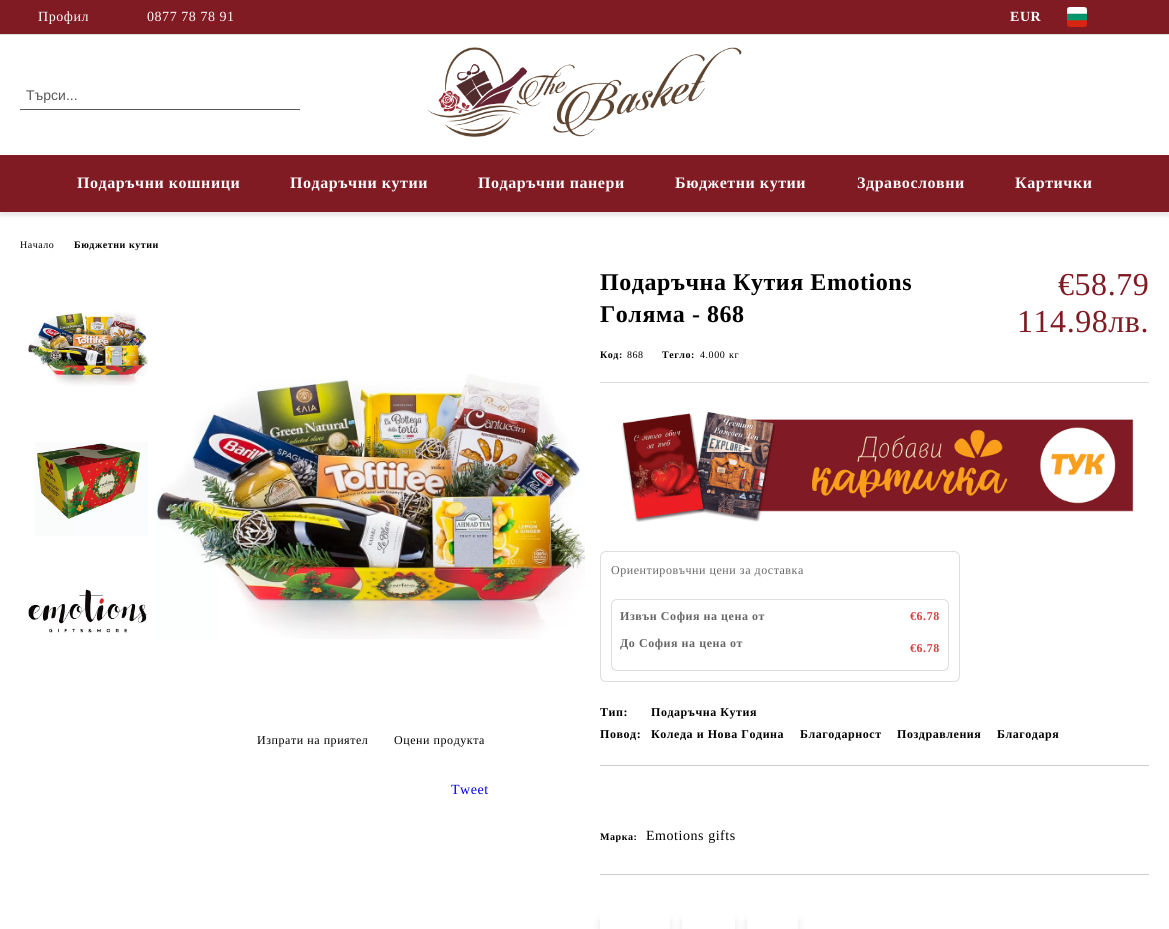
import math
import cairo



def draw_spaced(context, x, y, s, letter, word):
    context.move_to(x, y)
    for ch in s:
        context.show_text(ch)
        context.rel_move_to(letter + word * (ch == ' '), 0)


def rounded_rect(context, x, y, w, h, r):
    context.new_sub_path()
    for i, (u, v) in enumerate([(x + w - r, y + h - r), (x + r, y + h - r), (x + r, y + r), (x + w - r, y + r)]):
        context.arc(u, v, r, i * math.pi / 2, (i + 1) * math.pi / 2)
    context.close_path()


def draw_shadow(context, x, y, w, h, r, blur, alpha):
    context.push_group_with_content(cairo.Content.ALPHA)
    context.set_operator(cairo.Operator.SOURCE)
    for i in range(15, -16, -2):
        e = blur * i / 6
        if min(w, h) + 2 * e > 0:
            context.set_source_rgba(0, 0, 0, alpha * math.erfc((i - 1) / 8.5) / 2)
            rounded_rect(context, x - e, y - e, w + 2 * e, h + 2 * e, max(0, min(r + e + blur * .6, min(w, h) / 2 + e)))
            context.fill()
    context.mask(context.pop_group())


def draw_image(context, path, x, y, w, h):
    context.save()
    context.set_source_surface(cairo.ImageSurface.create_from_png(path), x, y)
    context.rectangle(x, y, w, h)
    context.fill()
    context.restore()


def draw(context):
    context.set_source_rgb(1, 1, 1)
    context.paint()
    context.set_source_rgb(128 / 255, 27 / 255, 36 / 255)
    context.rectangle(0, 0, 1169, 34)
    context.fill()
    context.set_source_rgb(221 / 255, 221 / 255, 221 / 255)
    context.rectangle(0, 34, 1169, 1)
    context.fill()
    draw_image(context, "images/1.png", 1067, 7, 20, 20)
    context.set_source_rgb(89 / 255, 89 / 255, 89 / 255)
    context.rectangle(20, 109, 280, 1)
    context.fill()
    draw_image(context, "images/2.png", 427, 47, 315, 90)
    context.set_source_rgb(0, 0, 0)
    draw_shadow(context, 0, 159, 1169, 57, 0, 2, 0.1)
    context.set_source_rgb(128 / 255, 27 / 255, 36 / 255)
    context.rectangle(0, 155, 1169, 57)
    context.fill()
    draw_image(context, "images/3.png", 28, 311, 120, 75)
    draw_image(context, "images/4.png", 35, 442, 113, 94)
    draw_image(context, "images/5.png", 28, 589, 120, 44)
    draw_image(context, "images/6.png", 156, 374, 429, 265)
    context.set_source_rgb(221 / 255, 221 / 255, 221 / 255)
    context.rectangle(600, 382, 549, 1)
    context.fill()
    draw_image(context, "images/7.png", 622, 411, 512, 111)
    rounded_rect(context, 600.5, 551.5, 359, 130, 5.5)
    context.set_line_width(1)
    context.stroke()
    rounded_rect(context, 611.5, 599.5, 337, 71, 5.5)
    context.stroke()
    context.set_source_rgb(204 / 255, 204 / 255, 204 / 255)
    context.rectangle(600, 765, 549, 1)
    context.fill()
    context.rectangle(600, 874, 549, 1)
    context.fill()
    context.save()
    context.set_fill_rule(cairo.FillRule.EVEN_ODD)
    context.new_path()
    context.move_to(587, 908)
    context.line_to(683, 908)
    context.line_to(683, 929)
    context.line_to(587, 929)
    context.close_path()
    context.move_to(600, 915)
    context.line_to(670, 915)
    context.line_to(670, 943)
    context.line_to(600, 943)
    context.close_path()
    context.clip()
    context.set_source_rgb(0, 0, 0)
    draw_shadow(context, 600, 921, 70, 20, 0, 4, 0.1)
    context.restore()
    context.save()
    context.set_fill_rule(cairo.FillRule.EVEN_ODD)
    context.new_path()
    context.move_to(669, 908)
    context.line_to(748, 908)
    context.line_to(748, 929)
    context.line_to(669, 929)
    context.close_path()
    context.move_to(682, 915)
    context.line_to(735, 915)
    context.line_to(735, 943)
    context.line_to(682, 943)
    context.close_path()
    context.clip()
    context.set_source_rgb(0, 0, 0)
    draw_shadow(context, 682, 921, 53, 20, 0, 4, 0.1)
    context.restore()
    context.save()
    context.set_fill_rule(cairo.FillRule.EVEN_ODD)
    context.new_path()
    context.move_to(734, 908)
    context.line_to(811, 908)
    context.line_to(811, 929)
    context.line_to(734, 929)
    context.close_path()
    context.move_to(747, 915)
    context.line_to(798, 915)
    context.line_to(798, 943)
    context.line_to(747, 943)
    context.close_path()
    context.clip()
    context.set_source_rgb(0, 0, 0)
    draw_shadow(context, 747, 921, 51, 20, 0, 4, 0.1)
    context.restore()
    context.select_font_face("Liberation Serif")
    context.set_font_size(14)
    context.set_source_rgb(250 / 255, 250 / 255, 250 / 255)
    draw_spaced(context, 38, 21, "Профил", 0.55, 0)
    draw_spaced(context, 147, 21, "0877 78 78 91", 0.55, 0)
    context.select_font_face("Liberation Serif", cairo.FontSlant.NORMAL, cairo.FontWeight.BOLD)
    draw_spaced(context, 1010, 21, "EUR", 0.55, 0)
    context.select_font_face("Liberation Sans")
    context.set_source_rgb(89 / 255, 89 / 255, 89 / 255)
    context.move_to(26, 100)
    context.show_text("Търси...")
    context.select_font_face("Liberation Serif", cairo.FontSlant.NORMAL, cairo.FontWeight.BOLD)
    context.set_font_size(16)
    context.set_source_rgb(250 / 255, 250 / 255, 250 / 255)
    draw_spaced(context, 77, 188, "Подаръчни кошници", 0.55, 0)
    draw_spaced(context, 290, 188, "Подаръчни кутии", 0.55, 0)
    draw_spaced(context, 478, 188, "Подаръчни панери", 0.55, 0)
    draw_spaced(context, 675, 188, "Бюджетни кутии", 0.55, 0)
    draw_spaced(context, 857, 188, "Здравословни", 0.55, 0)
    draw_spaced(context, 1015, 188, "Картички", 0.55, 0)
    context.select_font_face("Liberation Serif")
    context.set_font_size(10)
    context.set_source_rgb(0, 0, 0)
    draw_spaced(context, 20, 248, "Начало", 0.55, 0)
    context.select_font_face("Liberation Serif", cairo.FontSlant.NORMAL, cairo.FontWeight.BOLD)
    draw_spaced(context, 74, 248, "Бюджетни кутии", 0.55, 0)
    context.select_font_face("Liberation Serif")
    context.set_font_size(12)
    draw_spaced(context, 257, 744, "Изпрати на приятел", 0.55, 0)
    draw_spaced(context, 394, 744, "Оцени продукта", 0.55, 0)
    context.set_font_size(14)
    context.set_source_rgb(0, 0, 238 / 255)
    draw_spaced(context, 451, 794, "Tweet", 0.55, 0)
    context.select_font_face("Liberation Serif", cairo.FontSlant.NORMAL, cairo.FontWeight.BOLD)
    context.set_font_size(24)
    context.set_source_rgb(0, 0, 0)
    draw_spaced(context, 600, 290, "Подаръчна Кутия Emotions", 0.55, 0)
    draw_spaced(context, 600, 322, "Голяма - 868", 0.55, 0)
    context.select_font_face("Liberation Serif")
    context.set_font_size(32)
    context.set_source_rgb(128 / 255, 27 / 255, 36 / 255)
    draw_spaced(context, 1058, 295, "€58.79", 0.55, 0)
    draw_spaced(context, 1017, 332, "114.98лв.", 0.55, 0)
    context.select_font_face("Liberation Serif", cairo.FontSlant.NORMAL, cairo.FontWeight.BOLD)
    context.set_font_size(10)
    context.set_source_rgb(0, 0, 0)
    draw_spaced(context, 600, 358, "Код:", 0.55, 0)
    context.select_font_face("Liberation Serif")
    draw_spaced(context, 627, 358, "868", 0.55, 0)
    context.select_font_face("Liberation Serif", cairo.FontSlant.NORMAL, cairo.FontWeight.BOLD)
    draw_spaced(context, 662, 358, "Тегло:", 0.55, 0)
    context.select_font_face("Liberation Serif")
    draw_spaced(context, 700, 358, "4.000", 0.55, 0)
    draw_spaced(context, 729, 358, "кг", 0.55, 0)
    context.set_font_size(12)
    context.set_source_rgb(102 / 255, 102 / 255, 102 / 255)
    draw_spaced(context, 611, 574, "Ориентировъчни цени за доставка", 0.55, 0)
    context.select_font_face("Liberation Serif", cairo.FontSlant.NORMAL, cairo.FontWeight.BOLD)
    draw_spaced(context, 620, 620, "Извън София на цена от", 0.55, 0)
    context.set_source_rgb(204 / 255, 69 / 255, 69 / 255)
    draw_spaced(context, 910, 620, "€6.78", 0.55, 0)
    context.set_source_rgb(102 / 255, 102 / 255, 102 / 255)
    draw_spaced(context, 620, 647, "До София на цена от", 0.55, 0)
    context.set_source_rgb(204 / 255, 69 / 255, 69 / 255)
    draw_spaced(context, 910, 652, "€6.78", 0.55, 0)
    context.set_source_rgb(0, 0, 0)
    draw_spaced(context, 600, 716, "Тип:", 0.55, 0)
    draw_spaced(context, 651, 716, "Подаръчна Кутия", 0.55, 0)
    draw_spaced(context, 600, 738, "Повод:", 0.55, 0)
    draw_spaced(context, 651, 738, "Коледа и Нова Година", 0.55, 0)
    draw_spaced(context, 800, 738, "Благодарност", 0.55, 0)
    draw_spaced(context, 897, 738, "Поздравления", 0.55, 0)
    draw_spaced(context, 997, 738, "Благодаря", 0.55, 0)
    context.set_font_size(10)
    draw_spaced(context, 600, 840, "Марка:", 0.55, 0)
    context.select_font_face("Liberation Serif")
    context.set_font_size(14)
    draw_spaced(context, 646, 840, "Emotions gifts", 0.55, 0)


surface = cairo.ImageSurface(cairo.Format.RGB24, 1169, 929)
context = cairo.Context(surface)
options = cairo.FontOptions()
options.set_hint_metrics(cairo.HintMetrics.OFF)
options.set_hint_style(cairo.HintStyle.NONE)
context.set_font_options(options)
context.set_miter_limit(4)
draw(context)
surface.write_to_png("out.png")
